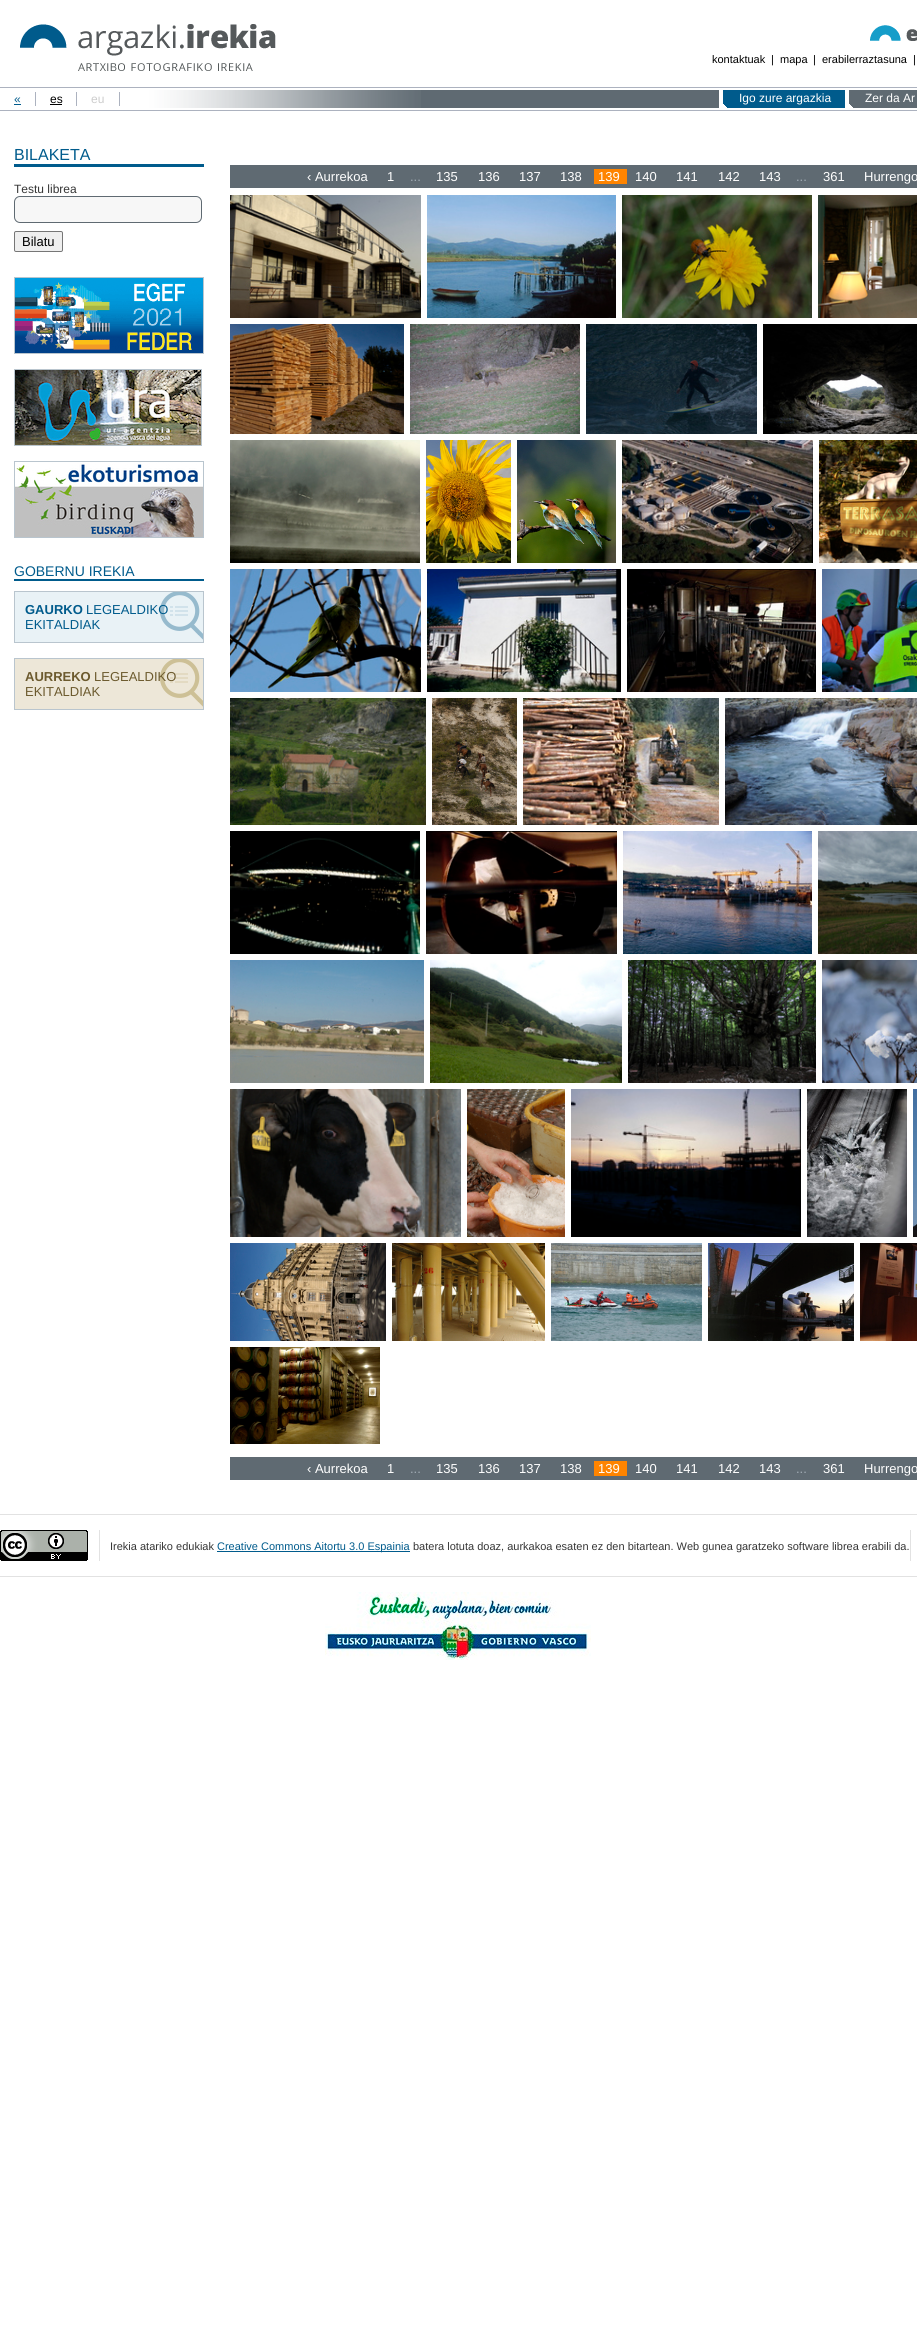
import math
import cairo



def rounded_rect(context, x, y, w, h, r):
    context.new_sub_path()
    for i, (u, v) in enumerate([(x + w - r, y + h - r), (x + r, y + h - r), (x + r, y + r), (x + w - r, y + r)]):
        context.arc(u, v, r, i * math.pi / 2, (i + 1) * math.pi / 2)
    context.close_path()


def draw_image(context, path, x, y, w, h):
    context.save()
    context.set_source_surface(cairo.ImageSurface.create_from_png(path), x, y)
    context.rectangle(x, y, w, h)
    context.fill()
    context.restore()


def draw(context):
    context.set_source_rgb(1, 1, 1)
    context.paint()
    context.set_source_rgb(172 / 255, 178 / 255, 191 / 255)
    context.rectangle(0, 110, 917, 1)
    context.fill()
    context.rectangle(0, 87, 917, 1)
    context.fill()
    draw_image(context, "images/1.png", 20, 24, 256, 47)
    draw_image(context, "images/2.png", 870, 25, 47, 16)
    context.set_source_rgb(95 / 255, 106 / 255, 114 / 255)
    context.rectangle(421, 90, 496, 18)
    context.fill()
    draw_image(context, "images/3.png", 0, 90, 421, 18)
    context.set_source_rgb(172 / 255, 178 / 255, 191 / 255)
    context.rectangle(35, 92, 1, 14)
    context.fill()
    context.set_source_rgb(0, 91 / 255, 140 / 255)
    context.rectangle(14, 104, 7, 1)
    context.fill()
    context.set_source_rgb(172 / 255, 178 / 255, 191 / 255)
    context.rectangle(76, 92, 1, 14)
    context.fill()
    context.set_source_rgb(0, 0, 0)
    context.rectangle(50, 104, 12, 1)
    context.fill()
    context.set_source_rgb(172 / 255, 178 / 255, 191 / 255)
    context.rectangle(119, 92, 1, 14)
    context.fill()
    context.set_source_rgb(0, 91 / 255, 140 / 255)
    context.rectangle(723, 90, 122, 18)
    context.fill()
    draw_image(context, "images/4.png", 719, 90, 8, 18)
    draw_image(context, "images/5.png", 845, 90, 8, 18)
    context.rectangle(14, 164, 190, 3)
    context.fill()
    context.set_source_rgb(247 / 255, 247 / 255, 247 / 255)
    rounded_rect(context, 14.5, 196.5, 187, 26, 5.5)
    context.fill_preserve()
    context.set_source_rgb(95 / 255, 106 / 255, 114 / 255)
    context.set_line_width(1)
    context.stroke()
    context.set_source_rgb(239 / 255, 239 / 255, 239 / 255)
    rounded_rect(context, 14.5, 231.5, 48, 20, 1.5)
    context.fill_preserve()
    context.set_source_rgb(118 / 255, 118 / 255, 118 / 255)
    context.stroke()
    context.rectangle(14.5, 277.5, 189, 76)
    context.set_source_rgb(185 / 255, 197 / 255, 206 / 255)
    context.stroke()
    draw_image(context, "images/6.png", 15, 278, 188, 75)
    context.rectangle(14.5, 369.5, 187, 76)
    context.stroke()
    draw_image(context, "images/7.png", 15, 370, 186, 75)
    context.rectangle(14.5, 461.5, 189, 76)
    context.stroke()
    draw_image(context, "images/8.png", 15, 462, 188, 75)
    context.set_source_rgb(0, 91 / 255, 140 / 255)
    context.rectangle(14, 579, 190, 2)
    context.fill()
    context.set_source_rgb(233 / 255, 242 / 255, 246 / 255)
    context.rectangle(15, 592, 188, 50)
    context.fill()
    draw_image(context, "images/9.png", 160, 592, 43, 48)
    context.rectangle(14.5, 591.5, 189, 51)
    context.set_source_rgb(185 / 255, 197 / 255, 206 / 255)
    context.stroke()
    context.set_source_rgb(237 / 255, 231 / 255, 216 / 255)
    context.rectangle(15, 659, 188, 50)
    context.fill()
    draw_image(context, "images/10.png", 160, 659, 43, 48)
    context.rectangle(14.5, 658.5, 189, 51)
    context.set_source_rgb(185 / 255, 197 / 255, 206 / 255)
    context.stroke()
    context.set_source_rgb(95 / 255, 106 / 255, 114 / 255)
    context.rectangle(230, 165, 687, 23)
    context.fill()
    context.set_source_rgb(1, 132 / 255, 0)
    context.rectangle(594, 169, 33, 15)
    context.fill()
    draw_image(context, "images/11.png", 230, 195, 191, 123)
    draw_image(context, "images/12.png", 427, 195, 189, 123)
    draw_image(context, "images/13.png", 622, 195, 190, 123)
    draw_image(context, "images/14.png", 818, 195, 99, 123)
    draw_image(context, "images/15.png", 230, 324, 174, 110)
    draw_image(context, "images/16.png", 410, 324, 170, 110)
    draw_image(context, "images/17.png", 586, 324, 171, 110)
    draw_image(context, "images/18.png", 763, 324, 154, 110)
    draw_image(context, "images/19.png", 230, 440, 190, 123)
    draw_image(context, "images/20.png", 426, 440, 85, 123)
    draw_image(context, "images/21.png", 517, 440, 99, 123)
    draw_image(context, "images/22.png", 622, 440, 191, 123)
    draw_image(context, "images/23.png", 819, 440, 98, 123)
    draw_image(context, "images/24.png", 230, 569, 191, 123)
    draw_image(context, "images/25.png", 427, 569, 194, 123)
    draw_image(context, "images/26.png", 627, 569, 189, 123)
    draw_image(context, "images/27.png", 822, 569, 95, 123)
    draw_image(context, "images/28.png", 230, 698, 196, 127)
    draw_image(context, "images/29.png", 432, 698, 85, 127)
    draw_image(context, "images/30.png", 523, 698, 196, 127)
    draw_image(context, "images/31.png", 725, 698, 192, 127)
    draw_image(context, "images/32.png", 230, 831, 190, 123)
    draw_image(context, "images/33.png", 426, 831, 191, 123)
    draw_image(context, "images/34.png", 623, 831, 189, 123)
    draw_image(context, "images/35.png", 818, 831, 99, 123)
    draw_image(context, "images/36.png", 230, 960, 194, 123)
    draw_image(context, "images/37.png", 430, 960, 192, 123)
    draw_image(context, "images/38.png", 628, 960, 188, 123)
    draw_image(context, "images/39.png", 822, 960, 95, 123)
    draw_image(context, "images/40.png", 230, 1089, 231, 148)
    draw_image(context, "images/41.png", 467, 1089, 98, 148)
    draw_image(context, "images/42.png", 571, 1089, 230, 148)
    draw_image(context, "images/43.png", 807, 1089, 100, 148)
    draw_image(context, "images/44.png", 913, 1089, 4, 148)
    draw_image(context, "images/45.png", 230, 1243, 156, 98)
    draw_image(context, "images/46.png", 392, 1243, 153, 98)
    draw_image(context, "images/47.png", 551, 1243, 151, 98)
    draw_image(context, "images/48.png", 708, 1243, 146, 98)
    draw_image(context, "images/49.png", 860, 1243, 57, 98)
    draw_image(context, "images/50.png", 230, 1347, 150, 97)
    context.set_source_rgb(95 / 255, 106 / 255, 114 / 255)
    context.rectangle(230, 1457, 687, 23)
    context.fill()
    context.set_source_rgb(1, 132 / 255, 0)
    context.rectangle(594, 1461, 33, 15)
    context.fill()
    context.set_source_rgb(226 / 255, 226 / 255, 226 / 255)
    context.rectangle(0, 1514, 917, 1)
    context.fill()
    context.rectangle(0, 1576, 917, 1)
    context.fill()
    draw_image(context, "images/51.png", 0, 1530, 88, 31)
    context.rectangle(99, 1530, 1, 31)
    context.fill()
    context.set_source_rgb(0, 91 / 255, 140 / 255)
    context.rectangle(217, 1551, 193, 1)
    context.fill()
    context.set_source_rgb(226 / 255, 226 / 255, 226 / 255)
    context.rectangle(910, 1530, 1, 31)
    context.fill()
    draw_image(context, "images/52.png", 325, 1592, 266, 68)
    context.select_font_face("Liberation Sans")
    context.set_font_size(11)
    context.set_source_rgb(0, 0, 0)
    context.move_to(712, 63)
    context.show_text("kontaktuak")
    context.move_to(771, 63)
    context.show_text("|")
    context.move_to(780, 63)
    context.show_text("mapa")
    context.move_to(813, 63)
    context.show_text("|")
    context.move_to(822, 63)
    context.show_text("erabilerraztasuna")
    context.move_to(913, 63)
    context.show_text("|")
    context.set_font_size(12)
    context.set_source_rgb(0, 91 / 255, 140 / 255)
    context.move_to(14, 103)
    context.show_text("«")
    context.set_source_rgb(0, 0, 0)
    context.move_to(50, 103)
    context.show_text("es")
    context.set_source_rgb(205 / 255, 205 / 255, 205 / 255)
    context.move_to(91, 103)
    context.show_text("eu")
    context.set_source_rgb(1, 1, 1)
    context.move_to(739, 102)
    context.show_text("Igo zure argazkia")
    context.move_to(865, 102)
    context.show_text("Zer da Ar")
    context.set_font_size(16)
    context.set_source_rgb(0, 91 / 255, 140 / 255)
    context.move_to(14, 160)
    context.show_text("BILAKETA")
    context.set_font_size(12)
    context.set_source_rgb(54 / 255, 54 / 255, 54 / 255)
    context.move_to(14, 193)
    context.show_text("Testu librea")
    context.set_font_size(13)
    context.set_source_rgb(0, 0, 0)
    context.move_to(22, 246)
    context.show_text("Bilatu")
    context.set_font_size(14)
    context.set_source_rgb(0, 91 / 255, 140 / 255)
    context.move_to(14, 576)
    context.show_text("GOBERNU IREKIA")
    context.select_font_face("Liberation Sans", cairo.FontSlant.NORMAL, cairo.FontWeight.BOLD)
    context.set_font_size(13)
    context.move_to(25, 614)
    context.show_text("GAURKO")
    context.select_font_face("Liberation Sans")
    context.move_to(86, 614)
    context.show_text("LEGEALDIKO")
    context.move_to(25, 629)
    context.show_text("EKITALDIAK")
    context.select_font_face("Liberation Sans", cairo.FontSlant.NORMAL, cairo.FontWeight.BOLD)
    context.set_source_rgb(108 / 255, 90 / 255, 46 / 255)
    context.move_to(25, 681)
    context.show_text("AURREKO")
    context.select_font_face("Liberation Sans")
    context.move_to(94, 681)
    context.show_text("LEGEALDIKO")
    context.move_to(25, 696)
    context.show_text("EKITALDIAK")
    context.set_source_rgb(1, 1, 1)
    context.move_to(307, 181)
    context.show_text("‹ Aurrekoa")
    context.move_to(387, 181)
    context.show_text("1")
    context.set_source_rgb(162 / 255, 172 / 255, 181 / 255)
    context.move_to(410, 181)
    context.show_text("...")
    context.set_source_rgb(1, 1, 1)
    context.move_to(436, 181)
    context.show_text("135")
    context.move_to(478, 181)
    context.show_text("136")
    context.move_to(519, 181)
    context.show_text("137")
    context.move_to(560, 181)
    context.show_text("138")
    context.move_to(598, 181)
    context.show_text("139")
    context.move_to(635, 181)
    context.show_text("140")
    context.move_to(676, 181)
    context.show_text("141")
    context.move_to(718, 181)
    context.show_text("142")
    context.move_to(759, 181)
    context.show_text("143")
    context.set_source_rgb(162 / 255, 172 / 255, 181 / 255)
    context.move_to(796, 181)
    context.show_text("...")
    context.set_source_rgb(1, 1, 1)
    context.move_to(823, 181)
    context.show_text("361")
    context.move_to(864, 181)
    context.show_text("Hurrengo")
    context.move_to(307, 1473)
    context.show_text("‹ Aurrekoa")
    context.move_to(387, 1473)
    context.show_text("1")
    context.set_source_rgb(162 / 255, 172 / 255, 181 / 255)
    context.move_to(410, 1473)
    context.show_text("...")
    context.set_source_rgb(1, 1, 1)
    context.move_to(436, 1473)
    context.show_text("135")
    context.move_to(478, 1473)
    context.show_text("136")
    context.move_to(519, 1473)
    context.show_text("137")
    context.move_to(560, 1473)
    context.show_text("138")
    context.move_to(598, 1473)
    context.show_text("139")
    context.move_to(635, 1473)
    context.show_text("140")
    context.move_to(676, 1473)
    context.show_text("141")
    context.move_to(718, 1473)
    context.show_text("142")
    context.move_to(759, 1473)
    context.show_text("143")
    context.set_source_rgb(162 / 255, 172 / 255, 181 / 255)
    context.move_to(796, 1473)
    context.show_text("...")
    context.set_source_rgb(1, 1, 1)
    context.move_to(823, 1473)
    context.show_text("361")
    context.move_to(864, 1473)
    context.show_text("Hurrengo")
    context.set_font_size(11)
    context.set_source_rgb(54 / 255, 54 / 255, 54 / 255)
    context.move_to(110, 1550)
    context.show_text("Irekia atariko edukiak")
    context.set_source_rgb(0, 91 / 255, 140 / 255)
    context.move_to(217, 1550)
    context.show_text("Creative Commons Aitortu 3.0 Espainia")
    context.set_source_rgb(54 / 255, 54 / 255, 54 / 255)
    context.move_to(413, 1550)
    context.show_text("batera lotuta doaz, aurkakoa esaten ez den bitartean. Web gunea garatzeko software librea erabili da.")


surface = cairo.ImageSurface(cairo.Format.RGB24, 917, 2334)
context = cairo.Context(surface)
options = cairo.FontOptions()
options.set_hint_metrics(cairo.HintMetrics.OFF)
options.set_hint_style(cairo.HintStyle.NONE)
context.set_font_options(options)
context.set_miter_limit(4)
draw(context)
surface.write_to_png("out.png")
